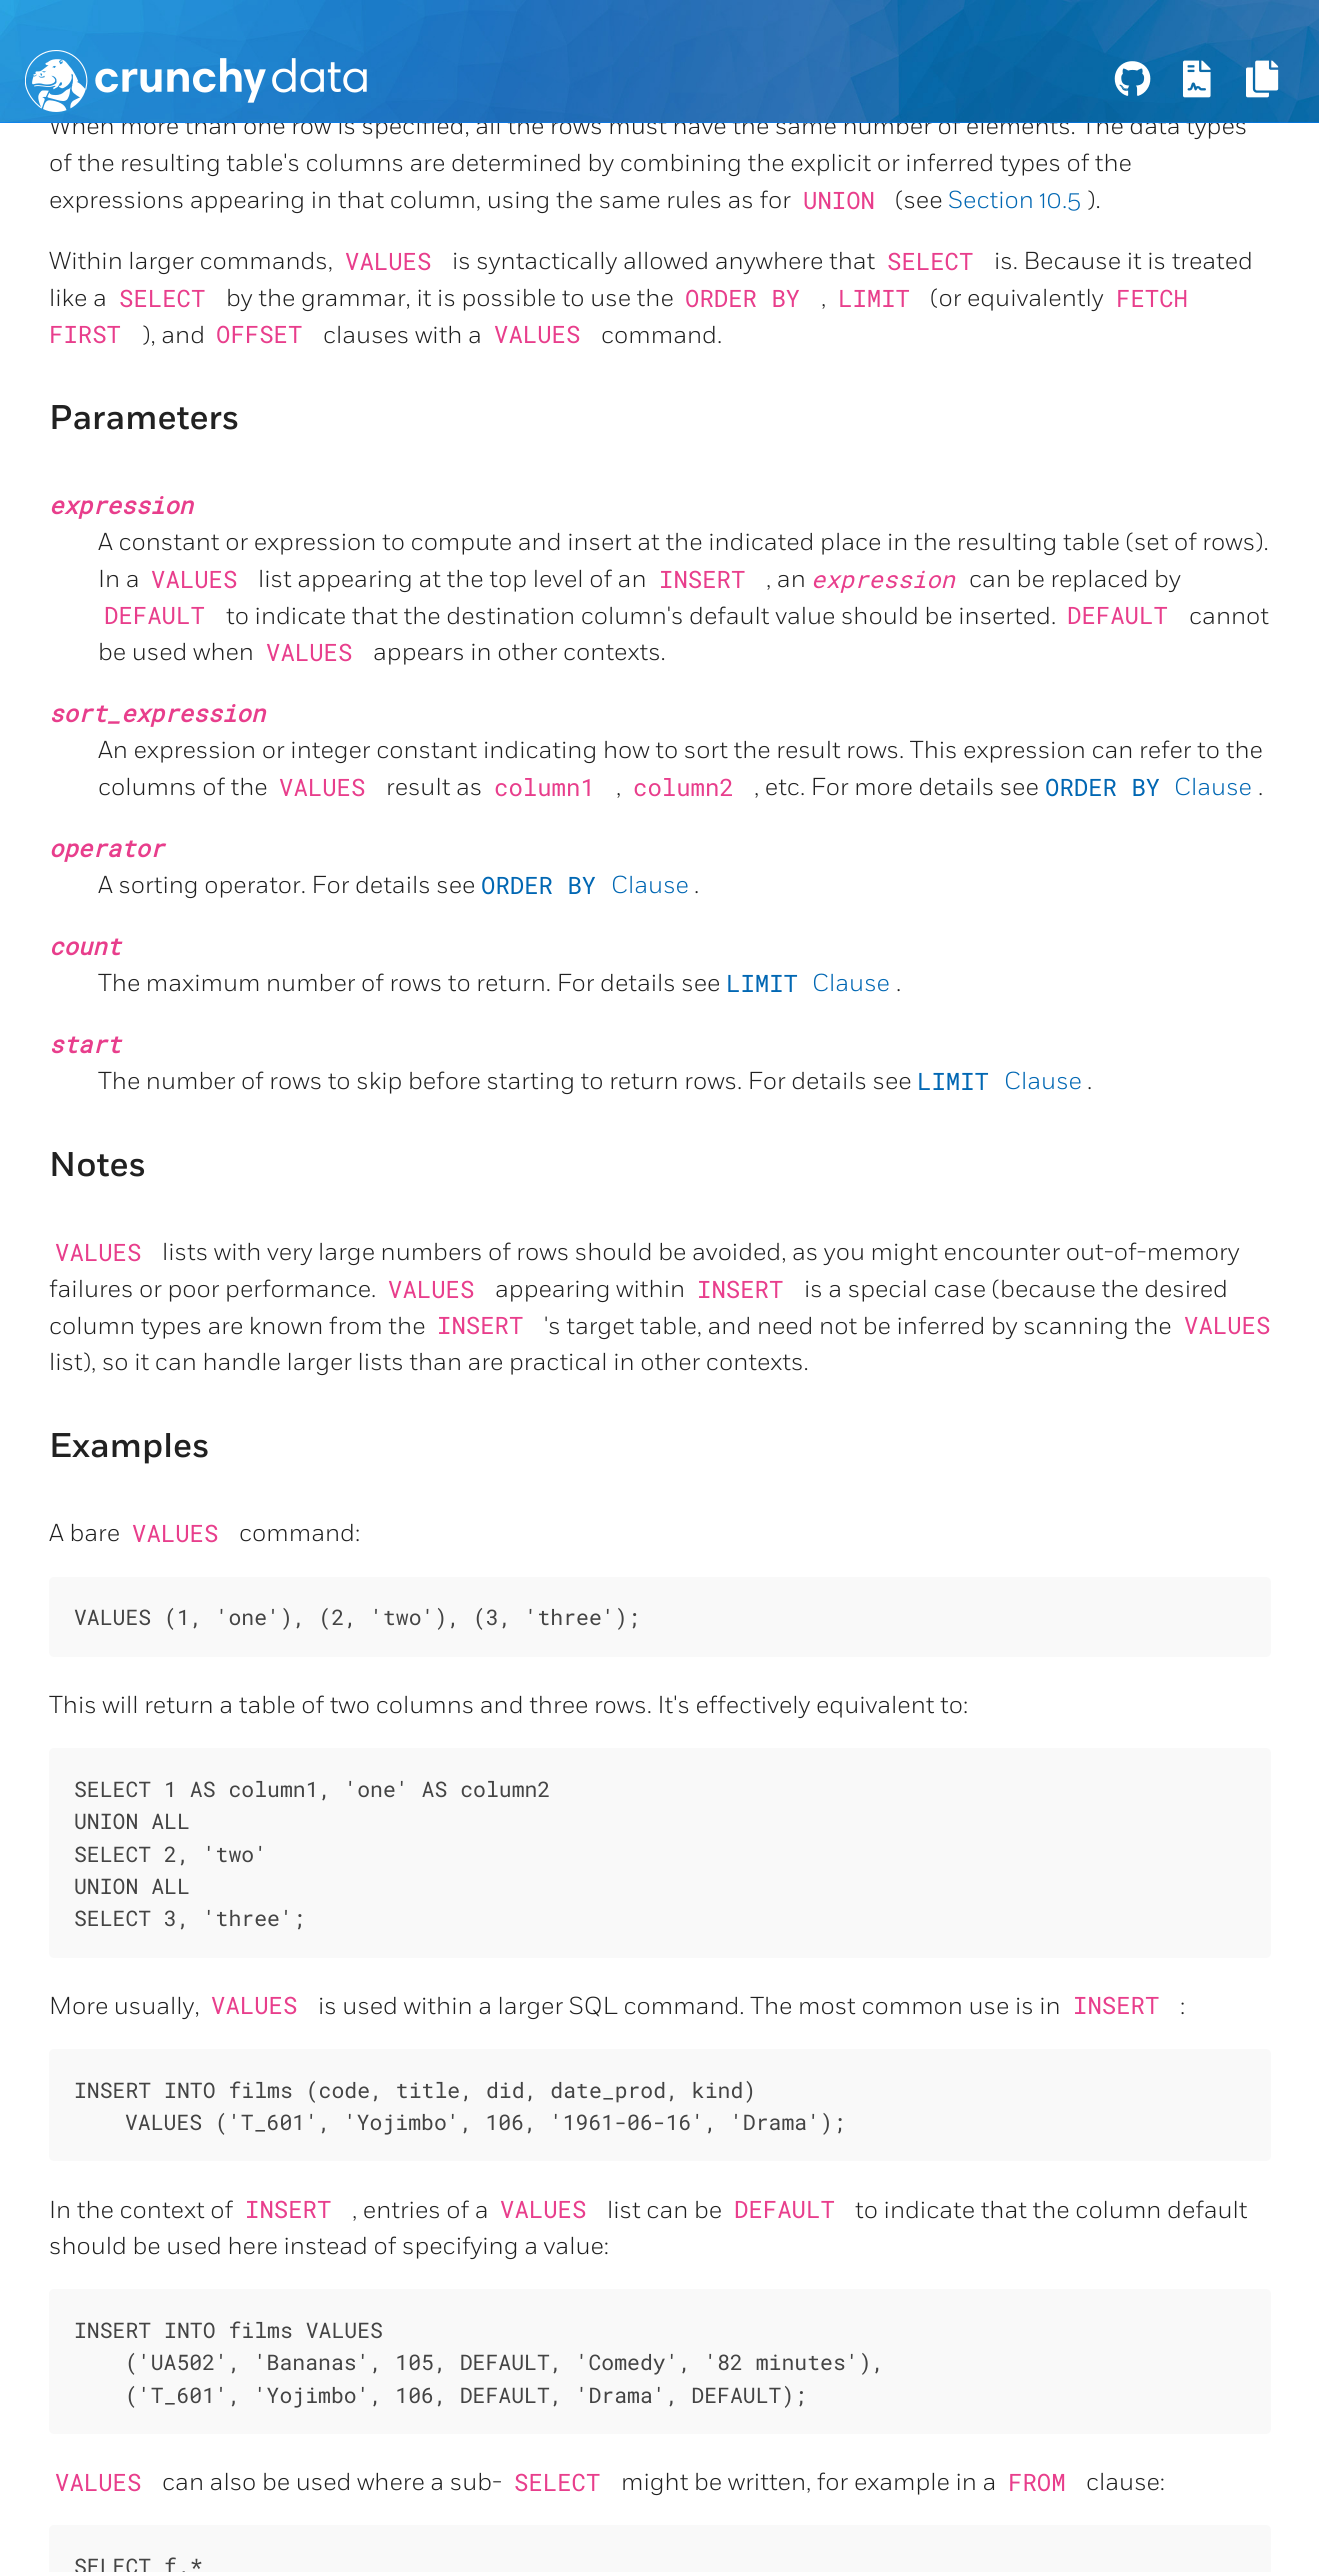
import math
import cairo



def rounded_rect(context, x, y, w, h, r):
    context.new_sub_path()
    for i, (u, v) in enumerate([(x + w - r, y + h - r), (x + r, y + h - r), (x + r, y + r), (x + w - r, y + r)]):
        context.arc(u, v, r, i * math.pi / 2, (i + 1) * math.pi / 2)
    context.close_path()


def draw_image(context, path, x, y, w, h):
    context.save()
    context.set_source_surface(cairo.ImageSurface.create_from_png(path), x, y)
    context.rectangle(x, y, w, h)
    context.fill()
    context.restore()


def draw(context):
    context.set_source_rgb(1, 1, 1)
    context.paint()
    context.set_source_rgb(249 / 255, 249 / 255, 249 / 255)
    rounded_rect(context, 49, 1577, 1222, 80, 5)
    context.fill()
    rounded_rect(context, 49, 1748, 1222, 210, 5)
    context.fill()
    rounded_rect(context, 49, 2049, 1222, 112, 5)
    context.fill()
    rounded_rect(context, 49, 2289, 1222, 145, 5)
    context.fill()
    rounded_rect(context, 49, 2525, 1222, 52, 5)
    context.fill()
    context.select_font_face("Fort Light")
    context.set_font_size(24.5)
    context.set_source_rgb(33 / 255, 33 / 255, 33 / 255)
    context.move_to(49, 134)
    context.show_text("When more than one row is specified, all the rows must have the same number of elements. The data types")
    context.set_source_rgb(0, 123 / 255, 1)
    context.rectangle(0, 122, 1319, 1)
    context.fill()
    draw_image(context, "images/1.png", 0, 0, 1319, 123)
    draw_image(context, "images/5.png", 1246, 60, 33, 38)
    draw_image(context, "images/4.png", 1183, 60, 28, 38)
    draw_image(context, "images/3.png", 1114, 61, 37, 35)
    draw_image(context, "images/2.png", 25, 50, 342, 62)
    context.set_source_rgb(33 / 255, 33 / 255, 33 / 255)
    context.move_to(49, 171)
    context.show_text("of the resulting table's columns are determined by combining the explicit or inferred types of the")
    context.move_to(49, 208)
    context.show_text("expressions appearing in that column, using the same rules as for")
    context.select_font_face("Roboto Mono")
    context.set_font_size(24)
    context.set_source_rgb(232 / 255, 62 / 255, 140 / 255)
    context.move_to(803, 209)
    context.show_text("UNION")
    context.select_font_face("Fort Light")
    context.set_font_size(24.5)
    context.set_source_rgb(33 / 255, 33 / 255, 33 / 255)
    context.move_to(895, 208)
    context.show_text("(see")
    context.set_source_rgb(1 / 255, 103 / 255, 179 / 255)
    context.move_to(948, 208)
    context.show_text("Section 10.5")
    context.set_source_rgb(33 / 255, 33 / 255, 33 / 255)
    context.move_to(1087, 208)
    context.show_text(").")
    context.move_to(49, 269)
    context.show_text("Within larger commands,")
    context.select_font_face("Roboto Mono")
    context.set_font_size(24)
    context.set_source_rgb(232 / 255, 62 / 255, 140 / 255)
    context.move_to(345, 270)
    context.show_text("VALUES")
    context.select_font_face("Fort Light")
    context.set_font_size(24.5)
    context.set_source_rgb(33 / 255, 33 / 255, 33 / 255)
    context.move_to(452, 269)
    context.show_text("is syntactically allowed anywhere that")
    context.select_font_face("Roboto Mono")
    context.set_font_size(24)
    context.set_source_rgb(232 / 255, 62 / 255, 140 / 255)
    context.move_to(887, 270)
    context.show_text("SELECT")
    context.select_font_face("Fort Light")
    context.set_font_size(24.5)
    context.set_source_rgb(33 / 255, 33 / 255, 33 / 255)
    context.move_to(994, 269)
    context.show_text("is. Because it is treated")
    context.move_to(49, 306)
    context.show_text("like a")
    context.select_font_face("Roboto Mono")
    context.set_font_size(24)
    context.set_source_rgb(232 / 255, 62 / 255, 140 / 255)
    context.move_to(119, 307)
    context.show_text("SELECT")
    context.select_font_face("Fort Light")
    context.set_font_size(24.5)
    context.set_source_rgb(33 / 255, 33 / 255, 33 / 255)
    context.move_to(226, 306)
    context.show_text("by the grammar, it is possible to use the")
    context.select_font_face("Roboto Mono")
    context.set_font_size(24)
    context.set_source_rgb(232 / 255, 62 / 255, 140 / 255)
    context.move_to(685, 307)
    context.show_text("ORDER BY")
    context.select_font_face("Fort Light")
    context.set_font_size(24.5)
    context.set_source_rgb(33 / 255, 33 / 255, 33 / 255)
    context.move_to(821, 306)
    context.show_text(",")
    context.select_font_face("Roboto Mono")
    context.set_font_size(24)
    context.set_source_rgb(232 / 255, 62 / 255, 140 / 255)
    context.move_to(838, 307)
    context.show_text("LIMIT")
    context.select_font_face("Fort Light")
    context.set_font_size(24.5)
    context.set_source_rgb(33 / 255, 33 / 255, 33 / 255)
    context.move_to(930, 306)
    context.show_text("(or equivalently")
    context.select_font_face("Roboto Mono")
    context.set_font_size(24)
    context.set_source_rgb(232 / 255, 62 / 255, 140 / 255)
    context.move_to(1116, 307)
    context.show_text("FETCH")
    context.move_to(49, 343)
    context.show_text("FIRST")
    context.select_font_face("Fort Light")
    context.set_font_size(24.5)
    context.set_source_rgb(33 / 255, 33 / 255, 33 / 255)
    context.move_to(142, 343)
    context.show_text("), and")
    context.select_font_face("Roboto Mono")
    context.set_font_size(24)
    context.set_source_rgb(232 / 255, 62 / 255, 140 / 255)
    context.move_to(216, 343)
    context.show_text("OFFSET")
    context.select_font_face("Fort Light")
    context.set_font_size(24.5)
    context.set_source_rgb(33 / 255, 33 / 255, 33 / 255)
    context.move_to(323, 343)
    context.show_text("clauses with a")
    context.select_font_face("Roboto Mono")
    context.set_font_size(24)
    context.set_source_rgb(232 / 255, 62 / 255, 140 / 255)
    context.move_to(494, 343)
    context.show_text("VALUES")
    context.select_font_face("Fort Light")
    context.set_font_size(24.5)
    context.set_source_rgb(33 / 255, 33 / 255, 33 / 255)
    context.move_to(601, 343)
    context.show_text("command.")
    context.select_font_face("Fort Medium")
    context.set_font_size(34.25)
    context.move_to(49, 429)
    context.show_text("Parameters")
    context.select_font_face("Roboto Mono", cairo.FontSlant.ITALIC, cairo.FontWeight.BOLD)
    context.set_font_size(24)
    context.set_source_rgb(232 / 255, 62 / 255, 140 / 255)
    context.move_to(49, 514)
    context.show_text("expression")
    context.select_font_face("Fort Light")
    context.set_font_size(24.5)
    context.set_source_rgb(33 / 255, 33 / 255, 33 / 255)
    context.move_to(98, 550)
    context.show_text("A constant or expression to compute and insert at the indicated place in the resulting table (set of rows).")
    context.move_to(98, 587)
    context.show_text("In a")
    context.select_font_face("Roboto Mono")
    context.set_font_size(24)
    context.set_source_rgb(232 / 255, 62 / 255, 140 / 255)
    context.move_to(151, 588)
    context.show_text("VALUES")
    context.select_font_face("Fort Light")
    context.set_font_size(24.5)
    context.set_source_rgb(33 / 255, 33 / 255, 33 / 255)
    context.move_to(258, 587)
    context.show_text("list appearing at the top level of an")
    context.select_font_face("Roboto Mono")
    context.set_font_size(24)
    context.set_source_rgb(232 / 255, 62 / 255, 140 / 255)
    context.move_to(659, 588)
    context.show_text("INSERT")
    context.select_font_face("Fort Light")
    context.set_font_size(24.5)
    context.set_source_rgb(33 / 255, 33 / 255, 33 / 255)
    context.move_to(766, 587)
    context.show_text(", an")
    context.select_font_face("Roboto Mono", cairo.FontSlant.ITALIC)
    context.set_font_size(24)
    context.set_source_rgb(232 / 255, 62 / 255, 140 / 255)
    context.move_to(811, 588)
    context.show_text("expression")
    context.select_font_face("Fort Light")
    context.set_font_size(24.5)
    context.set_source_rgb(33 / 255, 33 / 255, 33 / 255)
    context.move_to(969, 587)
    context.show_text("can be replaced by")
    context.select_font_face("Roboto Mono")
    context.set_font_size(24)
    context.set_source_rgb(232 / 255, 62 / 255, 140 / 255)
    context.move_to(104, 624)
    context.show_text("DEFAULT")
    context.select_font_face("Fort Light")
    context.set_font_size(24.5)
    context.set_source_rgb(33 / 255, 33 / 255, 33 / 255)
    context.move_to(226, 624)
    context.show_text("to indicate that the destination column's default value should be inserted.")
    context.select_font_face("Roboto Mono")
    context.set_font_size(24)
    context.set_source_rgb(232 / 255, 62 / 255, 140 / 255)
    context.move_to(1067, 624)
    context.show_text("DEFAULT")
    context.select_font_face("Fort Light")
    context.set_font_size(24.5)
    context.set_source_rgb(33 / 255, 33 / 255, 33 / 255)
    context.move_to(1189, 624)
    context.show_text("cannot")
    context.move_to(98, 660)
    context.show_text("be used when")
    context.select_font_face("Roboto Mono")
    context.set_font_size(24)
    context.set_source_rgb(232 / 255, 62 / 255, 140 / 255)
    context.move_to(266, 661)
    context.show_text("VALUES")
    context.select_font_face("Fort Light")
    context.set_font_size(24.5)
    context.set_source_rgb(33 / 255, 33 / 255, 33 / 255)
    context.move_to(373, 660)
    context.show_text("appears in other contexts.")
    context.select_font_face("Roboto Mono", cairo.FontSlant.ITALIC, cairo.FontWeight.BOLD)
    context.set_font_size(24)
    context.set_source_rgb(232 / 255, 62 / 255, 140 / 255)
    context.move_to(49, 722)
    context.show_text("sort_expression")
    context.select_font_face("Fort Light")
    context.set_font_size(24.5)
    context.set_source_rgb(33 / 255, 33 / 255, 33 / 255)
    context.move_to(98, 758)
    context.show_text("An expression or integer constant indicating how to sort the result rows. This expression can refer to the")
    context.move_to(98, 795)
    context.show_text("columns of the")
    context.select_font_face("Roboto Mono")
    context.set_font_size(24)
    context.set_source_rgb(232 / 255, 62 / 255, 140 / 255)
    context.move_to(279, 796)
    context.show_text("VALUES")
    context.select_font_face("Fort Light")
    context.set_font_size(24.5)
    context.set_source_rgb(33 / 255, 33 / 255, 33 / 255)
    context.move_to(386, 795)
    context.show_text("result as")
    context.select_font_face("Roboto Mono")
    context.set_font_size(24)
    context.set_source_rgb(232 / 255, 62 / 255, 140 / 255)
    context.move_to(494, 796)
    context.show_text("column1")
    context.select_font_face("Fort Light")
    context.set_font_size(24.5)
    context.set_source_rgb(33 / 255, 33 / 255, 33 / 255)
    context.move_to(616, 795)
    context.show_text(",")
    context.select_font_face("Roboto Mono")
    context.set_font_size(24)
    context.set_source_rgb(232 / 255, 62 / 255, 140 / 255)
    context.move_to(633, 796)
    context.show_text("column2")
    context.select_font_face("Fort Light")
    context.set_font_size(24.5)
    context.set_source_rgb(33 / 255, 33 / 255, 33 / 255)
    context.move_to(754, 795)
    context.show_text(", etc. For more details see")
    context.select_font_face("Roboto Mono")
    context.set_font_size(24)
    context.set_source_rgb(1 / 255, 103 / 255, 179 / 255)
    context.move_to(1045, 796)
    context.show_text("ORDER BY")
    context.select_font_face("Fort Light")
    context.set_font_size(24.5)
    context.move_to(1174, 795)
    context.show_text("Clause")
    context.set_source_rgb(33 / 255, 33 / 255, 33 / 255)
    context.move_to(1258, 795)
    context.show_text(".")
    context.select_font_face("Roboto Mono", cairo.FontSlant.ITALIC, cairo.FontWeight.BOLD)
    context.set_font_size(24)
    context.set_source_rgb(232 / 255, 62 / 255, 140 / 255)
    context.move_to(49, 857)
    context.show_text("operator")
    context.select_font_face("Fort Light")
    context.set_font_size(24.5)
    context.set_source_rgb(33 / 255, 33 / 255, 33 / 255)
    context.move_to(98, 893)
    context.show_text("A sorting operator. For details see")
    context.select_font_face("Roboto Mono")
    context.set_font_size(24)
    context.set_source_rgb(1 / 255, 103 / 255, 179 / 255)
    context.move_to(481, 894)
    context.show_text("ORDER BY")
    context.select_font_face("Fort Light")
    context.set_font_size(24.5)
    context.move_to(611, 893)
    context.show_text("Clause")
    context.set_source_rgb(33 / 255, 33 / 255, 33 / 255)
    context.move_to(694, 893)
    context.show_text(".")
    context.select_font_face("Roboto Mono", cairo.FontSlant.ITALIC, cairo.FontWeight.BOLD)
    context.set_font_size(24)
    context.set_source_rgb(232 / 255, 62 / 255, 140 / 255)
    context.move_to(49, 955)
    context.show_text("count")
    context.select_font_face("Fort Light")
    context.set_font_size(24.5)
    context.set_source_rgb(33 / 255, 33 / 255, 33 / 255)
    context.move_to(98, 991)
    context.show_text("The maximum number of rows to return. For details see")
    context.select_font_face("Roboto Mono")
    context.set_font_size(24)
    context.set_source_rgb(1 / 255, 103 / 255, 179 / 255)
    context.move_to(726, 992)
    context.show_text("LIMIT")
    context.select_font_face("Fort Light")
    context.set_font_size(24.5)
    context.move_to(812, 991)
    context.show_text("Clause")
    context.set_source_rgb(33 / 255, 33 / 255, 33 / 255)
    context.move_to(896, 991)
    context.show_text(".")
    context.select_font_face("Roboto Mono", cairo.FontSlant.ITALIC, cairo.FontWeight.BOLD)
    context.set_font_size(24)
    context.set_source_rgb(232 / 255, 62 / 255, 140 / 255)
    context.move_to(49, 1053)
    context.show_text("start")
    context.select_font_face("Fort Light")
    context.set_font_size(24.5)
    context.set_source_rgb(33 / 255, 33 / 255, 33 / 255)
    context.move_to(98, 1089)
    context.show_text("The number of rows to skip before starting to return rows. For details see")
    context.select_font_face("Roboto Mono")
    context.set_font_size(24)
    context.set_source_rgb(1 / 255, 103 / 255, 179 / 255)
    context.move_to(917, 1090)
    context.show_text("LIMIT")
    context.select_font_face("Fort Light")
    context.set_font_size(24.5)
    context.move_to(1004, 1089)
    context.show_text("Clause")
    context.set_source_rgb(33 / 255, 33 / 255, 33 / 255)
    context.move_to(1087, 1089)
    context.show_text(".")
    context.select_font_face("Fort Medium")
    context.set_font_size(34.25)
    context.move_to(49, 1176)
    context.show_text("Notes")
    context.select_font_face("Roboto Mono")
    context.set_font_size(24)
    context.set_source_rgb(232 / 255, 62 / 255, 140 / 255)
    context.move_to(55, 1261)
    context.show_text("VALUES")
    context.select_font_face("Fort Light")
    context.set_font_size(24.5)
    context.set_source_rgb(33 / 255, 33 / 255, 33 / 255)
    context.move_to(162, 1260)
    context.show_text("lists with very large numbers of rows should be avoided, as you might encounter out-of-memory")
    context.move_to(49, 1297)
    context.show_text("failures or poor performance.")
    context.select_font_face("Roboto Mono")
    context.set_font_size(24)
    context.set_source_rgb(232 / 255, 62 / 255, 140 / 255)
    context.move_to(388, 1298)
    context.show_text("VALUES")
    context.select_font_face("Fort Light")
    context.set_font_size(24.5)
    context.set_source_rgb(33 / 255, 33 / 255, 33 / 255)
    context.move_to(495, 1297)
    context.show_text("appearing within")
    context.select_font_face("Roboto Mono")
    context.set_font_size(24)
    context.set_source_rgb(232 / 255, 62 / 255, 140 / 255)
    context.move_to(697, 1298)
    context.show_text("INSERT")
    context.select_font_face("Fort Light")
    context.set_font_size(24.5)
    context.set_source_rgb(33 / 255, 33 / 255, 33 / 255)
    context.move_to(804, 1297)
    context.show_text("is a special case (because the desired")
    context.move_to(49, 1334)
    context.show_text("column types are known from the")
    context.select_font_face("Roboto Mono")
    context.set_font_size(24)
    context.set_source_rgb(232 / 255, 62 / 255, 140 / 255)
    context.move_to(437, 1334)
    context.show_text("INSERT")
    context.select_font_face("Fort Light")
    context.set_font_size(24.5)
    context.set_source_rgb(33 / 255, 33 / 255, 33 / 255)
    context.move_to(544, 1334)
    context.show_text("'s target table, and need not be inferred by scanning the")
    context.select_font_face("Roboto Mono")
    context.set_font_size(24)
    context.set_source_rgb(232 / 255, 62 / 255, 140 / 255)
    context.move_to(1184, 1334)
    context.show_text("VALUES")
    context.select_font_face("Fort Light")
    context.set_font_size(24.5)
    context.set_source_rgb(33 / 255, 33 / 255, 33 / 255)
    context.move_to(49, 1370)
    context.show_text("list), so it can handle larger lists than are practical in other contexts.")
    context.select_font_face("Fort Medium")
    context.set_font_size(34.25)
    context.move_to(49, 1457)
    context.show_text("Examples")
    context.select_font_face("Fort Light")
    context.set_font_size(24.5)
    context.move_to(49, 1541)
    context.show_text("A bare")
    context.select_font_face("Roboto Mono")
    context.set_font_size(24)
    context.set_source_rgb(232 / 255, 62 / 255, 140 / 255)
    context.move_to(132, 1542)
    context.show_text("VALUES")
    context.select_font_face("Fort Light")
    context.set_font_size(24.5)
    context.set_source_rgb(33 / 255, 33 / 255, 33 / 255)
    context.move_to(239, 1541)
    context.show_text("command:")
    context.select_font_face("Roboto Mono")
    context.set_font_size(21.45)
    context.set_source_rgb(68 / 255, 68 / 255, 68 / 255)
    context.move_to(74, 1625)
    context.show_text("VALUES (1, 'one'), (2, 'two'), (3, 'three');")
    context.select_font_face("Fort Light")
    context.set_font_size(24.5)
    context.set_source_rgb(33 / 255, 33 / 255, 33 / 255)
    context.move_to(49, 1713)
    context.show_text("This will return a table of two columns and three rows. It's effectively equivalent to:")
    context.select_font_face("Roboto Mono")
    context.set_font_size(21.45)
    context.set_source_rgb(68 / 255, 68 / 255, 68 / 255)
    context.move_to(74, 1797)
    context.show_text("SELECT 1 AS column1, 'one' AS column2")
    context.move_to(74, 1829)
    context.show_text("UNION ALL")
    context.move_to(74, 1862)
    context.show_text("SELECT 2, 'two'")
    context.move_to(74, 1894)
    context.show_text("UNION ALL")
    context.move_to(74, 1926)
    context.show_text("SELECT 3, 'three';")
    context.select_font_face("Fort Light")
    context.set_font_size(24.5)
    context.set_source_rgb(33 / 255, 33 / 255, 33 / 255)
    context.move_to(49, 2014)
    context.show_text("More usually,")
    context.select_font_face("Roboto Mono")
    context.set_font_size(24)
    context.set_source_rgb(232 / 255, 62 / 255, 140 / 255)
    context.move_to(211, 2014)
    context.show_text("VALUES")
    context.select_font_face("Fort Light")
    context.set_font_size(24.5)
    context.set_source_rgb(33 / 255, 33 / 255, 33 / 255)
    context.move_to(318, 2014)
    context.show_text("is used within a larger SQL command. The most common use is in")
    context.select_font_face("Roboto Mono")
    context.set_font_size(24)
    context.set_source_rgb(232 / 255, 62 / 255, 140 / 255)
    context.move_to(1073, 2014)
    context.show_text("INSERT")
    context.select_font_face("Fort Light")
    context.set_font_size(24.5)
    context.set_source_rgb(33 / 255, 33 / 255, 33 / 255)
    context.move_to(1180, 2014)
    context.show_text(":")
    context.select_font_face("Roboto Mono")
    context.set_font_size(21.45)
    context.set_source_rgb(68 / 255, 68 / 255, 68 / 255)
    context.move_to(74, 2098)
    context.show_text("INSERT INTO films (code, title, did, date_prod, kind)")
    context.move_to(125, 2130)
    context.show_text("VALUES ('T_601', 'Yojimbo', 106, '1961-06-16', 'Drama');")
    context.select_font_face("Fort Light")
    context.set_font_size(24.5)
    context.set_source_rgb(33 / 255, 33 / 255, 33 / 255)
    context.move_to(49, 2218)
    context.show_text("In the context of")
    context.select_font_face("Roboto Mono")
    context.set_font_size(24)
    context.set_source_rgb(232 / 255, 62 / 255, 140 / 255)
    context.move_to(245, 2218)
    context.show_text("INSERT")
    context.select_font_face("Fort Light")
    context.set_font_size(24.5)
    context.set_source_rgb(33 / 255, 33 / 255, 33 / 255)
    context.move_to(352, 2218)
    context.show_text(", entries of a")
    context.select_font_face("Roboto Mono")
    context.set_font_size(24)
    context.set_source_rgb(232 / 255, 62 / 255, 140 / 255)
    context.move_to(500, 2218)
    context.show_text("VALUES")
    context.select_font_face("Fort Light")
    context.set_font_size(24.5)
    context.set_source_rgb(33 / 255, 33 / 255, 33 / 255)
    context.move_to(607, 2218)
    context.show_text("list can be")
    context.select_font_face("Roboto Mono")
    context.set_font_size(24)
    context.set_source_rgb(232 / 255, 62 / 255, 140 / 255)
    context.move_to(734, 2218)
    context.show_text("DEFAULT")
    context.select_font_face("Fort Light")
    context.set_font_size(24.5)
    context.set_source_rgb(33 / 255, 33 / 255, 33 / 255)
    context.move_to(855, 2218)
    context.show_text("to indicate that the column default")
    context.move_to(49, 2254)
    context.show_text("should be used here instead of specifying a value:")
    context.select_font_face("Roboto Mono")
    context.set_font_size(21.45)
    context.set_source_rgb(68 / 255, 68 / 255, 68 / 255)
    context.move_to(74, 2338)
    context.show_text("INSERT INTO films VALUES")
    context.move_to(125, 2370)
    context.show_text("('UA502', 'Bananas', 105, DEFAULT, 'Comedy', '82 minutes'),")
    context.move_to(125, 2403)
    context.show_text("('T_601', 'Yojimbo', 106, DEFAULT, 'Drama', DEFAULT);")
    context.set_font_size(24)
    context.set_source_rgb(232 / 255, 62 / 255, 140 / 255)
    context.move_to(55, 2491)
    context.show_text("VALUES")
    context.select_font_face("Fort Light")
    context.set_font_size(24.5)
    context.set_source_rgb(33 / 255, 33 / 255, 33 / 255)
    context.move_to(162, 2490)
    context.show_text("can also be used where a sub-")
    context.select_font_face("Roboto Mono")
    context.set_font_size(24)
    context.set_source_rgb(232 / 255, 62 / 255, 140 / 255)
    context.move_to(514, 2491)
    context.show_text("SELECT")
    context.select_font_face("Fort Light")
    context.set_font_size(24.5)
    context.set_source_rgb(33 / 255, 33 / 255, 33 / 255)
    context.move_to(621, 2490)
    context.show_text("might be written, for example in a")
    context.select_font_face("Roboto Mono")
    context.set_font_size(24)
    context.set_source_rgb(232 / 255, 62 / 255, 140 / 255)
    context.move_to(1008, 2491)
    context.show_text("FROM")
    context.select_font_face("Fort Light")
    context.set_font_size(24.5)
    context.set_source_rgb(33 / 255, 33 / 255, 33 / 255)
    context.move_to(1086, 2490)
    context.show_text("clause:")
    context.select_font_face("Roboto Mono")
    context.set_font_size(21.45)
    context.set_source_rgb(68 / 255, 68 / 255, 68 / 255)
    context.move_to(74, 2574)
    context.show_text("SELECT f.*")


surface = cairo.ImageSurface(cairo.Format.RGB24, 1319, 2572)
context = cairo.Context(surface)
options = cairo.FontOptions()
options.set_hint_metrics(cairo.HintMetrics.OFF)
options.set_hint_style(cairo.HintStyle.NONE)
context.set_font_options(options)
context.set_miter_limit(4)
draw(context)
surface.write_to_png("out.png")
